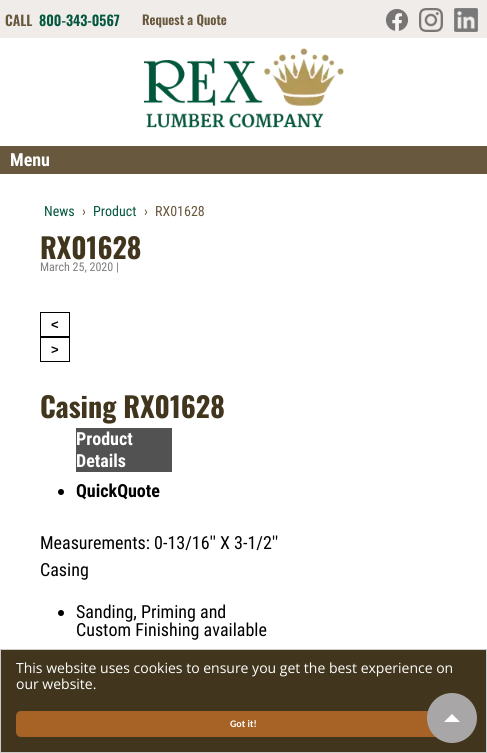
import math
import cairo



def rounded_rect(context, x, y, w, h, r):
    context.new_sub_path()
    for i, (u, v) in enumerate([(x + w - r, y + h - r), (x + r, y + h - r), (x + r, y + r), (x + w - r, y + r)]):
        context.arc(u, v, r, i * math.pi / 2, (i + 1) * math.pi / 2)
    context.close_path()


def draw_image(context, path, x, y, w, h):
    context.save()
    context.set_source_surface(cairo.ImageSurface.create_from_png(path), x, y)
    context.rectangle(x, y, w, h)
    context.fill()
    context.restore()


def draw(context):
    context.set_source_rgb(1, 1, 1)
    context.paint()
    context.set_source_rgb(240 / 255, 236 / 255, 233 / 255)
    context.rectangle(0, 0, 487, 38)
    context.fill()
    draw_image(context, "images/1.png", 386, 9, 22, 22)
    draw_image(context, "images/2.png", 419, 8, 24, 24)
    draw_image(context, "images/3.png", 454, 8, 24, 24)
    draw_image(context, "images/4.png", 144, 48, 200, 80)
    context.set_source_rgb(104 / 255, 88 / 255, 62 / 255)
    context.rectangle(0, 146, 487, 28)
    context.fill()
    context.rectangle(40.5, 312.5, 29, 24)
    context.set_source_rgb(0, 0, 0)
    context.set_line_width(1)
    context.stroke()
    context.rectangle(40.5, 337.5, 29, 24)
    context.stroke()
    context.set_source_rgb(81 / 255, 82 / 255, 81 / 255)
    context.rectangle(76, 428, 96, 44)
    context.fill()
    context.set_source_rgb(0, 0, 0)
    context.arc(61, 492, 3, 0, 2 * math.pi)
    context.fill()
    context.arc(61, 613, 3, 0, 2 * math.pi)
    context.fill()
    context.set_source_rgb(65 / 255, 53 / 255, 29 / 255)
    context.rectangle(0.5, 649.5, 486, 103)
    context.fill_preserve()
    context.set_source_rgb(204 / 255, 204 / 255, 204 / 255)
    context.stroke()
    context.set_source_rgb(167 / 255, 98 / 255, 37 / 255)
    rounded_rect(context, 16, 711, 455, 26, 5)
    context.fill()
    context.set_source_rgb(168 / 255, 166 / 255, 166 / 255)
    context.arc(452, 718, 25, 0, 2 * math.pi)
    context.fill()
    context.set_source_rgb(1, 1, 1)
    context.new_path()
    context.move_to(460, 722)
    context.line_to(444, 722)
    context.line_to(452, 714)
    context.close_path()
    context.fill()
    context.select_font_face("Oswald SemiBold")
    context.set_font_size(14)
    context.set_source_rgb(104 / 255, 88 / 255, 62 / 255)
    context.move_to(5, 26)
    context.show_text("CALL")
    context.set_source_rgb(3 / 255, 87 / 255, 62 / 255)
    context.move_to(39, 26)
    context.show_text("800-343-0567")
    context.set_font_size(13)
    context.set_source_rgb(104 / 255, 88 / 255, 62 / 255)
    context.move_to(142, 25)
    context.show_text("Request a Quote")
    context.select_font_face("Roboto Condensed", cairo.FontSlant.NORMAL, cairo.FontWeight.BOLD)
    context.set_font_size(18)
    context.set_source_rgb(1, 1, 1)
    context.move_to(10, 166)
    context.show_text("Menu")
    context.select_font_face("Roboto Condensed")
    context.set_font_size(14)
    context.set_source_rgb(3 / 255, 87 / 255, 62 / 255)
    context.move_to(44, 216)
    context.show_text("News")
    context.set_source_rgb(104 / 255, 88 / 255, 62 / 255)
    context.move_to(82, 216)
    context.show_text("›")
    context.set_source_rgb(3 / 255, 87 / 255, 62 / 255)
    context.move_to(93, 216)
    context.show_text("Product")
    context.set_source_rgb(104 / 255, 88 / 255, 62 / 255)
    context.move_to(144, 216)
    context.show_text("›")
    context.move_to(155, 216)
    context.show_text("RX01628")
    context.select_font_face("Oswald", cairo.FontSlant.NORMAL, cairo.FontWeight.BOLD)
    context.set_font_size(28)
    context.set_source_rgb(65 / 255, 53 / 255, 29 / 255)
    context.move_to(40, 259)
    context.show_text("RX01628")
    context.select_font_face("Roboto Condensed")
    context.set_font_size(12)
    context.set_source_rgb(126 / 255, 126 / 255, 126 / 255)
    context.move_to(40, 271)
    context.show_text("March 25, 2020 |")
    context.select_font_face("Liberation Sans", cairo.FontSlant.NORMAL, cairo.FontWeight.BOLD)
    context.set_font_size(13)
    context.set_source_rgb(0, 0, 0)
    context.move_to(51, 329)
    context.show_text("<")
    context.move_to(51, 354)
    context.show_text(">")
    context.select_font_face("Oswald", cairo.FontSlant.NORMAL, cairo.FontWeight.BOLD)
    context.set_font_size(28)
    context.set_source_rgb(65 / 255, 53 / 255, 29 / 255)
    context.move_to(40, 418)
    context.show_text("Casing RX01628")
    context.select_font_face("Roboto Condensed", cairo.FontSlant.NORMAL, cairo.FontWeight.BOLD)
    context.set_font_size(18)
    context.set_source_rgb(1, 1, 1)
    context.move_to(76, 445)
    context.show_text("Product")
    context.move_to(76, 467)
    context.show_text("Details")
    context.set_source_rgb(0, 0, 0)
    context.move_to(76, 497)
    context.show_text("QuickQuote")
    context.select_font_face("Roboto Condensed")
    context.move_to(40, 549)
    context.show_text("Measurements: 0-13/16'' X 3-1/2''")
    context.move_to(40, 576)
    context.show_text("Casing")
    context.move_to(76, 618)
    context.show_text("Sanding, Priming and")
    context.move_to(76, 636)
    context.show_text("Custom Finishing available")
    context.select_font_face("Open Sans")
    context.set_font_size(14)
    context.set_source_rgb(1, 1, 1)
    context.move_to(16, 673)
    context.show_text("This website uses cookies to ensure you get the best experience on")
    context.move_to(16, 689)
    context.show_text("our website.")
    context.select_font_face("Carlito", cairo.FontSlant.NORMAL, cairo.FontWeight.BOLD)
    context.set_font_size(10)
    context.move_to(230, 727)
    context.show_text("Got it!")


surface = cairo.ImageSurface(cairo.Format.RGB24, 487, 753)
context = cairo.Context(surface)
options = cairo.FontOptions()
options.set_hint_metrics(cairo.HintMetrics.OFF)
options.set_hint_style(cairo.HintStyle.NONE)
context.set_font_options(options)
context.set_miter_limit(4)
draw(context)
surface.write_to_png("out.png")
